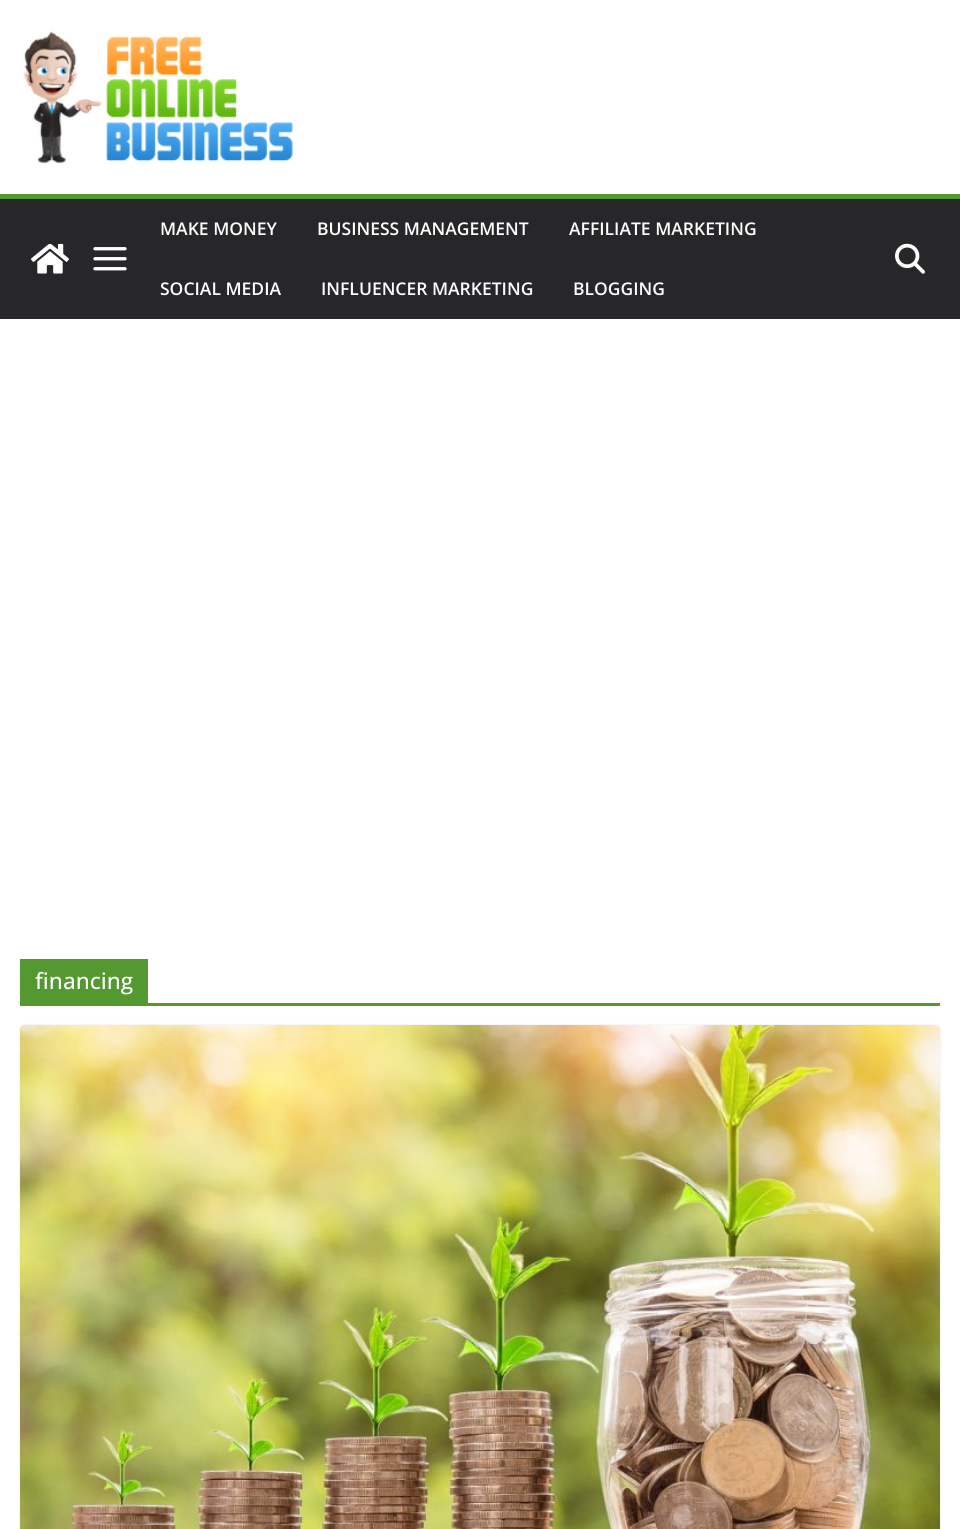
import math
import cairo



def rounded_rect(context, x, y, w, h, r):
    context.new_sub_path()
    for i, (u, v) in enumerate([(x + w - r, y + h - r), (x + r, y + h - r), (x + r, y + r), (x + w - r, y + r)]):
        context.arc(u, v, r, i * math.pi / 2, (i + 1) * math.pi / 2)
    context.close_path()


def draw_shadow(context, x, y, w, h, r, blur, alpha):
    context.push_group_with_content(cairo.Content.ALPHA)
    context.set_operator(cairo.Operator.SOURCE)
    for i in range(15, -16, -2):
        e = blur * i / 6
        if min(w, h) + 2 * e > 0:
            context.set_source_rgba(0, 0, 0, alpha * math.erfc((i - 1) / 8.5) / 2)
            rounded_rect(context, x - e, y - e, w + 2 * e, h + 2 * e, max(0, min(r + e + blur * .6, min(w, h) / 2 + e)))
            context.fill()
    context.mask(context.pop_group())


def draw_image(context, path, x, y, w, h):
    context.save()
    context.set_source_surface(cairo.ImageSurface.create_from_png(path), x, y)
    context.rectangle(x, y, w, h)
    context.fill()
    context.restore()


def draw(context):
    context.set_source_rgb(1, 1, 1)
    context.paint()
    draw_image(context, "images/1.png", 23, 31, 270, 133)
    context.set_source_rgb(39 / 255, 39 / 255, 42 / 255)
    context.rectangle(0, 199, 960, 120)
    context.fill()
    context.set_source_rgb(84 / 255, 153 / 255, 47 / 255)
    context.rectangle(0, 194, 960, 5)
    context.fill()
    draw_image(context, "images/2.png", 31, 243, 38, 31)
    draw_image(context, "images/3.png", 93, 247, 34, 24)
    draw_image(context, "images/4.png", 895, 243, 30, 31)
    context.rectangle(20, 1003, 920, 3)
    context.fill()
    context.rectangle(20, 959, 128, 44)
    context.fill()
    context.set_source_rgb(228 / 255, 228 / 255, 231 / 255)
    draw_shadow(context, 20, 1025, 920, 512, 5, 1, 1)
    draw_image(context, "images/5.png", 20, 1025, 920, 504)
    context.select_font_face("Open Sans SemiBold")
    context.set_font_size(17.5)
    context.set_source_rgb(1, 1, 1)
    context.move_to(160, 235)
    context.show_text("MAKE MONEY")
    context.move_to(317, 235)
    context.show_text("BUSINESS MANAGEMENT")
    context.move_to(569, 235)
    context.show_text("AFFILIATE MARKETING")
    context.move_to(160, 295)
    context.show_text("SOCIAL MEDIA")
    context.move_to(321, 295)
    context.show_text("INFLUENCER MARKETING")
    context.move_to(573, 295)
    context.show_text("BLOGGING")
    context.select_font_face("Open Sans Medium")
    context.set_font_size(22.5)
    context.move_to(35, 989)
    context.show_text("financing")


surface = cairo.ImageSurface(cairo.Format.RGB24, 960, 1529)
context = cairo.Context(surface)
options = cairo.FontOptions()
options.set_hint_metrics(cairo.HintMetrics.OFF)
options.set_hint_style(cairo.HintStyle.NONE)
context.set_font_options(options)
context.set_miter_limit(4)
draw(context)
surface.write_to_png("out.png")
